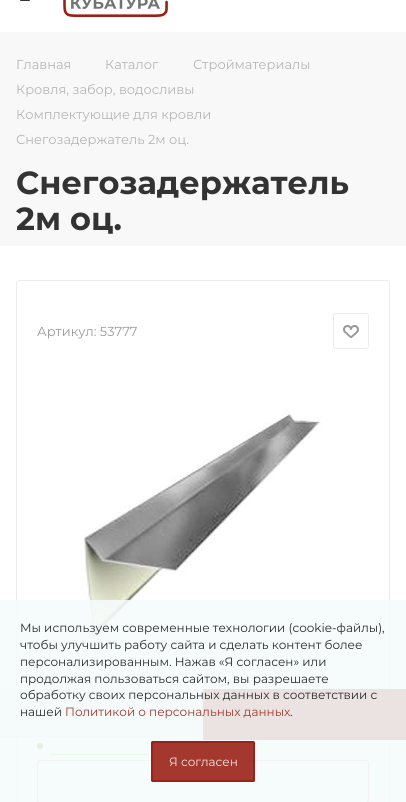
import math
import cairo



def rounded_rect(context, x, y, w, h, r):
    context.new_sub_path()
    for i, (u, v) in enumerate([(x + w - r, y + h - r), (x + r, y + h - r), (x + r, y + r), (x + w - r, y + r)]):
        context.arc(u, v, r, i * math.pi / 2, (i + 1) * math.pi / 2)
    context.close_path()


def draw_image(context, path, x, y, w, h):
    context.save()
    context.set_source_surface(cairo.ImageSurface.create_from_png(path), x, y)
    context.rectangle(x, y, w, h)
    context.fill()
    context.restore()


def draw(context):
    context.set_source_rgb(1, 1, 1)
    context.paint()
    context.set_source_rgb(248 / 255, 248 / 255, 248 / 255)
    context.rectangle(0, 32, 406, 214)
    context.fill()
    draw_image(context, "images/1.png", 20, 0, 10, 1)
    draw_image(context, "images/2.png", 63, 0, 105, 17)
    rounded_rect(context, 16.5, 280.5, 373, 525, 2.5)
    context.set_source_rgb(236 / 255, 236 / 255, 236 / 255)
    context.set_line_width(1)
    context.stroke()
    rounded_rect(context, 333.5, 313.5, 35, 35, 2.5)
    context.stroke()
    draw_image(context, "images/3.png", 343, 325, 16, 13)
    draw_image(context, "images/4.png", 83, 410, 240, 226)
    context.set_source_rgb(248 / 255, 248 / 255, 248 / 255)
    context.rectangle(0.5, 689.5, 202, 47)
    context.fill_preserve()
    context.set_source_rgb(236 / 255, 236 / 255, 236 / 255)
    context.stroke()
    context.set_source_rgb(150 / 255, 150 / 255, 150 / 255)
    rounded_rect(context, 20, 712, 11, 1, 0.5)
    context.fill()
    draw_image(context, "images/5.png", 171, 707, 11, 11)
    context.set_source_rgb(154 / 255, 32 / 255, 21 / 255)
    context.rectangle(203, 689, 203, 51)
    context.fill()
    rounded_rect(context, 37.5, 760.5, 331, 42, 2.5)
    context.set_source_rgb(219 / 255, 177 / 255, 173 / 255)
    context.stroke()
    context.set_source_rgb(95 / 255, 168 / 255, 0)
    context.arc(40, 746, 3, 0, 2 * math.pi)
    context.fill()
    context.new_path()
    context.move_to(52, 754.5)
    context.line_to(147, 754.5)
    context.set_dash([1, 1])
    context.stroke()
    context.set_source_rgba(245 / 255, 250 / 255, 250 / 255, 0.89)
    context.rectangle(0, 600, 406, 202)
    context.fill()
    context.set_source_rgba(154 / 255, 32 / 255, 21 / 255, 0.89)
    rounded_rect(context, 151, 741, 104, 41, 2)
    context.fill()
    rounded_rect(context, 152, 742, 102, 39, 1)
    context.set_line_width(2)
    context.set_dash([])
    context.stroke()
    context.select_font_face("Montserrat")
    context.set_font_size(13)
    context.set_source_rgb(182 / 255, 181 / 255, 181 / 255)
    context.move_to(16, 69)
    context.show_text("Главная")
    context.move_to(105, 69)
    context.show_text("Каталог")
    context.move_to(193, 69)
    context.show_text("Стройматериалы")
    context.move_to(16, 94)
    context.show_text("Кровля, забор, водосливы")
    context.move_to(16, 119)
    context.show_text("Комплектующие для кровли")
    context.move_to(16, 144)
    context.show_text("Снегозадержатель 2м оц.")
    context.select_font_face("Montserrat", cairo.FontSlant.NORMAL, cairo.FontWeight.BOLD)
    context.set_font_size(32)
    context.set_source_rgb(51 / 255, 51 / 255, 51 / 255)
    context.move_to(16, 194)
    context.show_text("Снегозадержатель")
    context.move_to(16, 230)
    context.show_text("2м оц.")
    context.select_font_face("Montserrat")
    context.set_font_size(13)
    context.set_source_rgb(153 / 255, 153 / 255, 153 / 255)
    context.move_to(37, 336)
    context.show_text("Артикул: 53777")
    context.set_font_size(12)
    context.set_source_rgb(42 / 255, 43 / 255, 43 / 255)
    context.move_to(20, 632)
    context.show_text("Мы используем современные технологии (cookie-файлы),")
    context.move_to(20, 649)
    context.show_text("чтобы улучшить работу сайта и сделать контент более")
    context.move_to(20, 666)
    context.show_text("персонализированным. Нажав «Я согласен» или")
    context.move_to(20, 683)
    context.show_text("продолжая пользоваться сайтом, вы разрешаете")
    context.move_to(20, 699)
    context.show_text("обработку своих персональных данных в соответствии с")
    context.move_to(20, 716)
    context.show_text("нашей")
    context.set_source_rgb(164 / 255, 55 / 255, 45 / 255)
    context.move_to(65, 716)
    context.show_text("Политикой о персональных данных")
    context.set_source_rgb(32 / 255, 19 / 255, 17 / 255)
    context.move_to(290, 716)
    context.show_text(".")
    context.set_source_rgb(245 / 255, 233 / 255, 232 / 255)
    context.move_to(169, 766)
    context.show_text("Я согласен")


surface = cairo.ImageSurface(cairo.Format.RGB24, 406, 802)
context = cairo.Context(surface)
options = cairo.FontOptions()
options.set_hint_metrics(cairo.HintMetrics.OFF)
options.set_hint_style(cairo.HintStyle.NONE)
context.set_font_options(options)
context.set_miter_limit(4)
draw(context)
surface.write_to_png("out.png")
